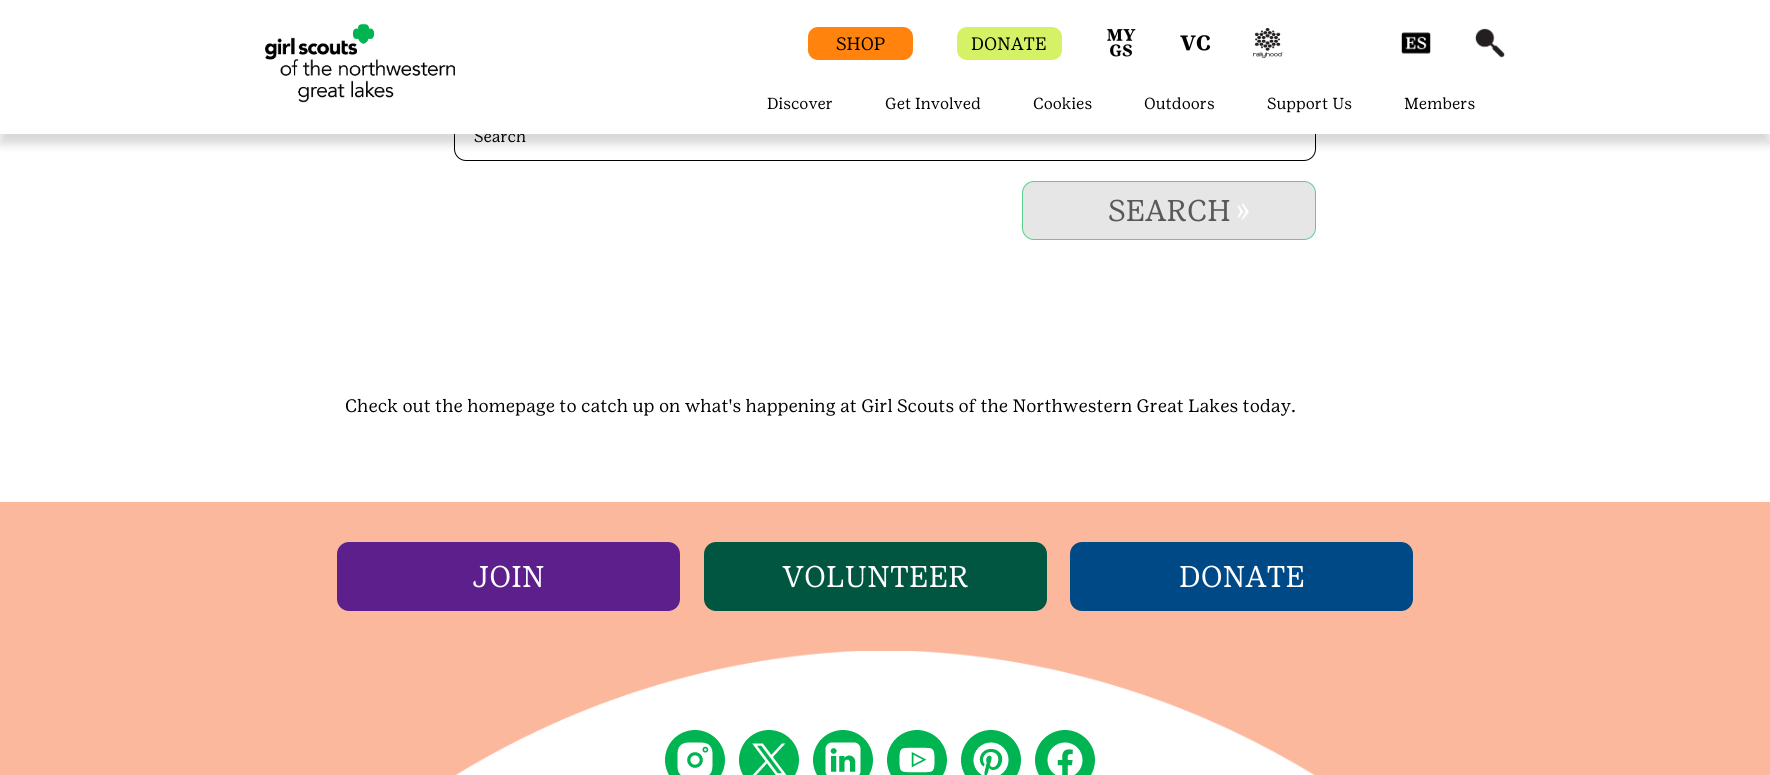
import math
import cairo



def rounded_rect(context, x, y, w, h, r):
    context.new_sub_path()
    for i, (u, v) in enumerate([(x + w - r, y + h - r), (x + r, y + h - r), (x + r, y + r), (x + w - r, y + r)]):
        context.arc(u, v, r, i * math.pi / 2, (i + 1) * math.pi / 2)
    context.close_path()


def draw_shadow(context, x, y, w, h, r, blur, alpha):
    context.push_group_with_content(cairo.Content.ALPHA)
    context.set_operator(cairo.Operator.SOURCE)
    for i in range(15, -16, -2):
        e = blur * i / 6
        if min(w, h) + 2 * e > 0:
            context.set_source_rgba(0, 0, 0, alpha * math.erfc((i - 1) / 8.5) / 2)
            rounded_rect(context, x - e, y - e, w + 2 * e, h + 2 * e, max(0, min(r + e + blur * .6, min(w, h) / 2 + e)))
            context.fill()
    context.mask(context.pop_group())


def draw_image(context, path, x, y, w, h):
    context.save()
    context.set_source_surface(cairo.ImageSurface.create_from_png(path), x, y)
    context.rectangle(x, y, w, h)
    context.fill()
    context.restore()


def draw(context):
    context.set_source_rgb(1, 1, 1)
    context.paint()
    rounded_rect(context, 454.5, 111.5, 861, 49, 11.5)
    context.set_source_rgb(0, 0, 0)
    context.set_line_width(1)
    context.stroke()
    context.set_source_rgb(0, 0, 0)
    draw_shadow(context, 0, 10, 1770, 134, 0, 5, 0.16)
    context.set_source_rgb(230 / 255, 230 / 255, 230 / 255)
    rounded_rect(context, 1022.5, 181.5, 293, 58, 11.5)
    context.fill_preserve()
    context.set_source_rgb(89 / 255, 206 / 255, 142 / 255)
    context.stroke()
    context.set_source_rgb(252 / 255, 184 / 255, 157 / 255)
    context.rectangle(0, 502, 1770, 149)
    context.fill()
    context.set_source_rgb(92 / 255, 31 / 255, 139 / 255)
    rounded_rect(context, 337, 542, 343, 69, 12)
    context.fill()
    context.set_source_rgb(0, 86 / 255, 64 / 255)
    rounded_rect(context, 704, 542, 343, 69, 12)
    context.fill()
    context.set_source_rgb(0, 73 / 255, 135 / 255)
    rounded_rect(context, 1070, 542, 343, 69, 12)
    context.fill()
    draw_image(context, "images/7.png", 0, 651, 1770, 124)
    draw_image(context, "images/8.png", 665, 730, 60, 45)
    draw_image(context, "images/9.png", 739, 730, 60, 45)
    draw_image(context, "images/10.png", 813, 730, 60, 45)
    draw_image(context, "images/11.png", 887, 730, 60, 45)
    draw_image(context, "images/12.png", 961, 730, 60, 45)
    draw_image(context, "images/13.png", 1035, 730, 60, 45)
    context.select_font_face("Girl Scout")
    context.set_font_size(16)
    context.set_source_rgb(0, 0, 0)
    context.move_to(474, 142)
    context.show_text("Search")
    context.set_source_rgb(1, 1, 1)
    context.rectangle(0, 2, 1770, 132)
    context.fill()
    context.set_source_rgb(213 / 255, 242 / 255, 103 / 255)
    rounded_rect(context, 957, 27, 105, 33, 10)
    context.fill()
    context.set_font_size(18)
    context.set_source_rgb(0, 0, 0)
    context.move_to(971, 50)
    context.show_text("DONATE")
    context.set_source_rgb(1, 131 / 255, 12 / 255)
    rounded_rect(context, 808, 27, 105, 33, 10)
    context.fill()
    context.set_source_rgb(0, 0, 0)
    context.move_to(836, 50)
    context.show_text("SHOP")
    draw_image(context, "images/6.png", 1475, 28, 30, 30)
    draw_image(context, "images/5.png", 1401, 32, 30, 22)
    draw_image(context, "images/4.png", 1253, 28, 30, 30)
    draw_image(context, "images/3.png", 1180, 35, 30, 16)
    draw_image(context, "images/2.png", 1107, 29, 29, 28)
    context.set_font_size(16)
    context.move_to(1404, 109)
    context.show_text("Members")
    context.move_to(1267, 109)
    context.show_text("Support Us")
    context.move_to(1144, 109)
    context.show_text("Outdoors")
    context.move_to(1033, 109)
    context.show_text("Cookies")
    context.move_to(885, 109)
    context.show_text("Get Involved")
    context.move_to(767, 109)
    context.show_text("Discover")
    draw_image(context, "images/1.png", 265, 23, 190, 80)
    context.set_font_size(30)
    context.set_source_rgb(89 / 255, 89 / 255, 89 / 255)
    context.move_to(1108, 221)
    context.show_text("SEARCH")
    context.set_font_size(40)
    context.set_source_rgb(1, 1, 1)
    context.move_to(1235, 222)
    context.show_text("»")
    context.set_font_size(18)
    context.set_source_rgb(0, 0, 0)
    context.move_to(345, 412)
    context.show_text("Check out the homepage to catch up on what's happening at Girl Scouts of the Northwestern Great Lakes today.")
    context.set_font_size(30)
    context.set_source_rgb(1, 1, 1)
    context.move_to(472, 587)
    context.show_text("JOIN")
    context.move_to(782, 587)
    context.show_text("VOLUNTEER")
    context.move_to(1179, 587)
    context.show_text("DONATE")


surface = cairo.ImageSurface(cairo.Format.RGB24, 1770, 775)
context = cairo.Context(surface)
options = cairo.FontOptions()
options.set_hint_metrics(cairo.HintMetrics.OFF)
options.set_hint_style(cairo.HintStyle.NONE)
context.set_font_options(options)
context.set_miter_limit(4)
draw(context)
surface.write_to_png("out.png")
